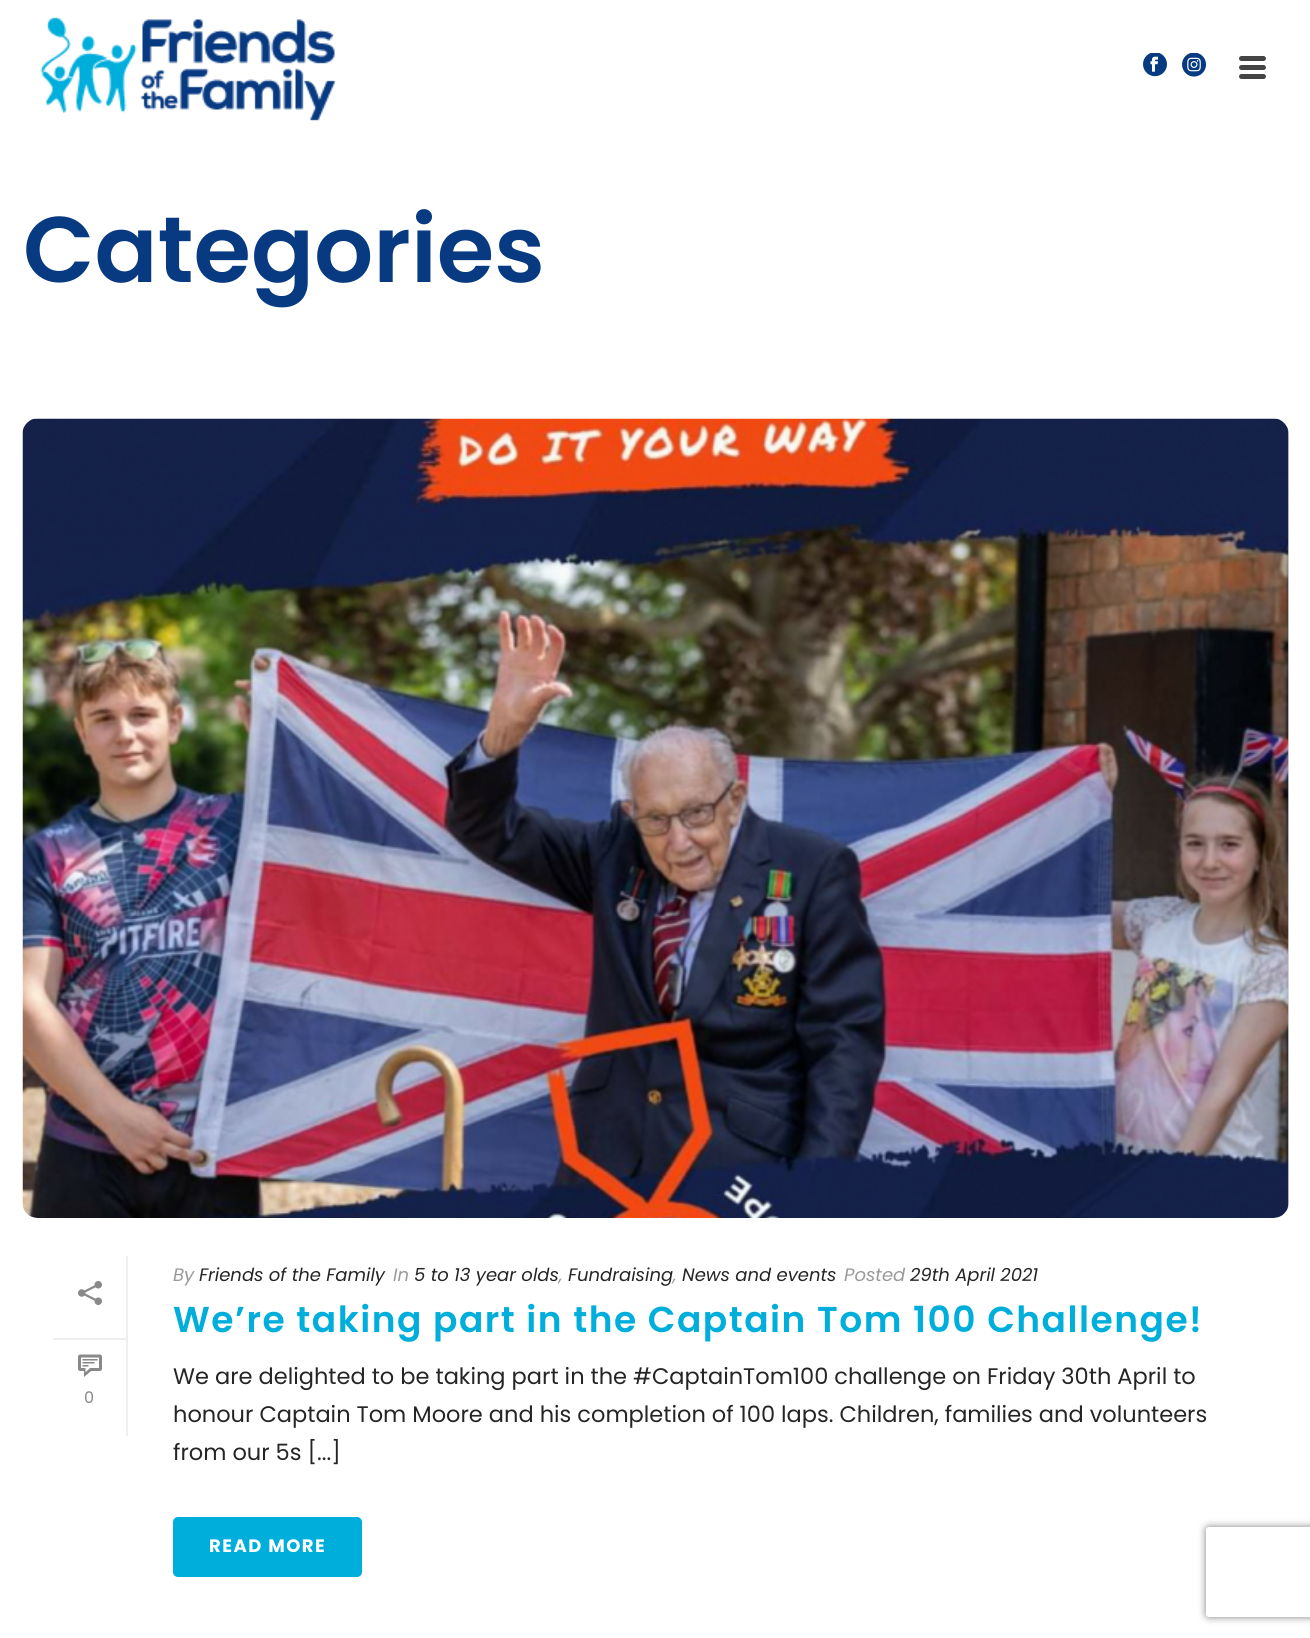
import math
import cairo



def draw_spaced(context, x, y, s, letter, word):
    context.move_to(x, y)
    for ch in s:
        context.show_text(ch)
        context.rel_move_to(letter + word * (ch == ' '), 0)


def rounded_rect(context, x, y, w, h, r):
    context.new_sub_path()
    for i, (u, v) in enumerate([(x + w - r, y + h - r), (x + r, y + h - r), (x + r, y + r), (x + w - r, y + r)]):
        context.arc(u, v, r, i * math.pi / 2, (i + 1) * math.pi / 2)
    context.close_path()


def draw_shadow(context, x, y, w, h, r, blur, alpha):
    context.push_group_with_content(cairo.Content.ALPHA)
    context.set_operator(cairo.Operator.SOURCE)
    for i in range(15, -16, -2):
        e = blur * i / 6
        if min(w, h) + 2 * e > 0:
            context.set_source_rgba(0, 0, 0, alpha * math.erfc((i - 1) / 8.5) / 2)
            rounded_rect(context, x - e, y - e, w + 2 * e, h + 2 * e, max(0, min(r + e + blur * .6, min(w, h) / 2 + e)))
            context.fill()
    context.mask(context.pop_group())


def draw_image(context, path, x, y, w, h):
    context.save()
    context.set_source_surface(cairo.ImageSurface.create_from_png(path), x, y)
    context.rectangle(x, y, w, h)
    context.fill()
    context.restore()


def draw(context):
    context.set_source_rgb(1, 1, 1)
    context.paint()
    draw_image(context, "images/1.png", 40, 17, 296, 104)
    context.set_source_rgb(68 / 255, 68 / 255, 68 / 255)
    rounded_rect(context, 1239, 56, 27, 5, 2.5)
    context.fill()
    rounded_rect(context, 1239, 65, 27, 5, 2.5)
    context.fill()
    rounded_rect(context, 1239, 74, 27, 5, 2.5)
    context.fill()
    draw_image(context, "images/2.png", 1143, 53, 24, 24)
    draw_image(context, "images/3.png", 1182, 53, 24, 24)
    context.set_source_rgb(224 / 255, 224 / 255, 224 / 255)
    rounded_rect(context, 23, 419, 1266, 799, 15)
    context.fill()
    draw_image(context, "images/4.png", 22, 418, 1267, 800)
    context.set_source_rgb(239 / 255, 239 / 255, 239 / 255)
    context.rectangle(126, 1256, 2, 180)
    context.fill()
    context.rectangle(53, 1338, 73, 2)
    context.fill()
    draw_image(context, "images/5.png", 78, 1281, 24, 24)
    draw_image(context, "images/6.png", 78, 1354, 24, 23)
    context.set_source_rgb(0, 174 / 255, 219 / 255)
    rounded_rect(context, 173, 1517, 189, 60, 5)
    context.fill()
    context.save()
    context.set_fill_rule(cairo.FillRule.EVEN_ODD)
    context.new_path()
    context.move_to(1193, 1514)
    context.line_to(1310, 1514)
    context.line_to(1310, 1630)
    context.line_to(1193, 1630)
    context.close_path()
    context.move_to(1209, 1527)
    context.line_to(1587, 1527)
    context.curve_to(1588.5, 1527, 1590, 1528.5, 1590, 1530)
    context.line_to(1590, 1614)
    context.curve_to(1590, 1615.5, 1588.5, 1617, 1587, 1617)
    context.line_to(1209, 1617)
    context.curve_to(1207.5, 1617, 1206, 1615.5, 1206, 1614)
    context.line_to(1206, 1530)
    context.curve_to(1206, 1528.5, 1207.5, 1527, 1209, 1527)
    context.close_path()
    context.clip()
    context.set_source_rgb(128 / 255, 128 / 255, 128 / 255)
    draw_shadow(context, 1206, 1527, 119, 90, 3, 4, 1)
    context.restore()
    context.select_font_face("Poppins SemiBold")
    context.set_font_size(93)
    context.set_source_rgb(8 / 255, 58 / 255, 129 / 255)
    context.move_to(23, 282)
    context.show_text("Categories")
    context.select_font_face("Poppins")
    context.set_font_size(16)
    context.set_source_rgb(137 / 255, 137 / 255, 137 / 255)
    context.move_to(84, 1403)
    context.show_text("0")
    context.select_font_face("Poppins", cairo.FontSlant.ITALIC)
    context.set_font_size(18)
    context.set_source_rgb(153 / 255, 153 / 255, 153 / 255)
    context.move_to(173, 1281)
    context.show_text("By")
    context.set_source_rgb(37 / 255, 37 / 255, 37 / 255)
    context.move_to(199, 1281)
    context.show_text("Friends of the Family")
    context.set_source_rgb(153 / 255, 153 / 255, 153 / 255)
    context.move_to(393, 1281)
    context.show_text("In")
    context.set_source_rgb(37 / 255, 37 / 255, 37 / 255)
    context.move_to(414, 1281)
    context.show_text("5 to 13 year olds")
    context.set_source_rgb(153 / 255, 153 / 255, 153 / 255)
    context.move_to(559, 1281)
    context.show_text(",")
    context.set_source_rgb(37 / 255, 37 / 255, 37 / 255)
    context.move_to(568, 1281)
    context.show_text("Fundraising")
    context.set_source_rgb(153 / 255, 153 / 255, 153 / 255)
    context.move_to(673, 1281)
    context.show_text(",")
    context.set_source_rgb(37 / 255, 37 / 255, 37 / 255)
    context.move_to(682, 1281)
    context.show_text("News and events")
    context.set_source_rgb(153 / 255, 153 / 255, 153 / 255)
    context.move_to(844, 1281)
    context.show_text("Posted")
    context.set_source_rgb(37 / 255, 37 / 255, 37 / 255)
    context.move_to(910, 1281)
    context.show_text("29th April 2021")
    context.select_font_face("Poppins SemiBold")
    context.set_font_size(36)
    context.set_source_rgb(0, 174 / 255, 219 / 255)
    draw_spaced(context, 173, 1332, "We’re taking part in the Captain Tom 100 Challenge!", 1.5, 0)
    context.select_font_face("Poppins")
    context.set_font_size(22.5)
    context.set_source_rgb(37 / 255, 37 / 255, 37 / 255)
    context.move_to(173, 1384)
    context.show_text("We are delighted to be taking part in the #CaptainTom100 challenge on Friday 30th April to")
    context.move_to(173, 1422)
    context.show_text("honour Captain Tom Moore and his completion of 100 laps. Children, families and volunteers")
    context.move_to(173, 1460)
    context.show_text("from our 5s [...]")
    context.select_font_face("Poppins", cairo.FontSlant.NORMAL, cairo.FontWeight.BOLD)
    context.set_font_size(18)
    context.set_source_rgb(1, 1, 1)
    draw_spaced(context, 209, 1552, "READ MORE", 1.5, 0)


surface = cairo.ImageSurface(cairo.Format.RGB24, 1310, 1638)
context = cairo.Context(surface)
options = cairo.FontOptions()
options.set_hint_metrics(cairo.HintMetrics.OFF)
options.set_hint_style(cairo.HintStyle.NONE)
context.set_font_options(options)
context.set_miter_limit(4)
draw(context)
surface.write_to_png("out.png")
